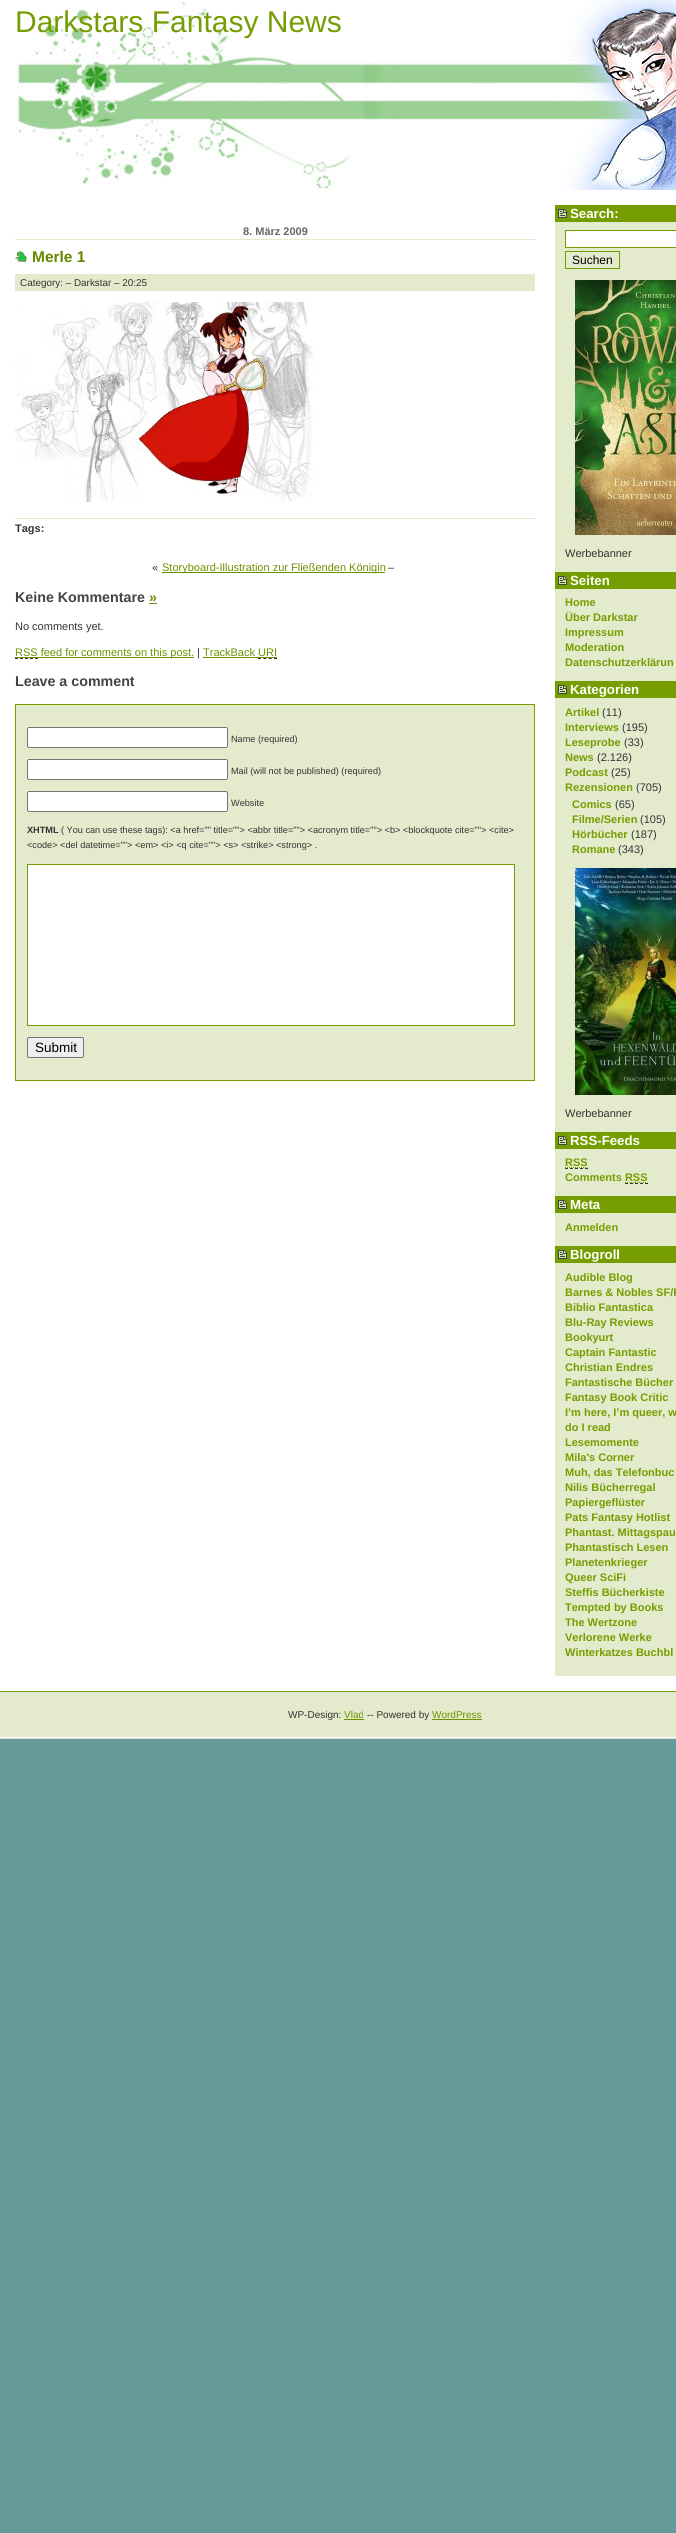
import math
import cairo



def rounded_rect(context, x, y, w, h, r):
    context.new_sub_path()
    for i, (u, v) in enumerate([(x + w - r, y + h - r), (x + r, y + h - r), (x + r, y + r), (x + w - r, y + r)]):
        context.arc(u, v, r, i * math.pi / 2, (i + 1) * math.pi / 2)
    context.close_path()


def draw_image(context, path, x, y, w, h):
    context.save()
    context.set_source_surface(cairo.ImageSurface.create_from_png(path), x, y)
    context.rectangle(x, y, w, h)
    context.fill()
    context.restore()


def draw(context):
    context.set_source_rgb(102 / 255, 153 / 255, 153 / 255)
    context.paint()
    context.set_source_rgb(1, 1, 1)
    context.rectangle(0, 0, 676, 1738)
    context.fill()
    context.set_source_rgb(221 / 255, 221 / 255, 221 / 255)
    context.rectangle(0, 1738, 676, 1)
    context.fill()
    draw_image(context, "images/1.png", 16, 0, 660, 190)
    context.set_source_rgb(227 / 255, 235 / 255, 204 / 255)
    context.rectangle(15, 239, 520, 1)
    context.fill()
    draw_image(context, "images/2.png", 15, 251, 12, 11)
    context.rectangle(15, 274, 520, 17)
    context.fill()
    draw_image(context, "images/3.png", 15, 302, 299, 200)
    context.rectangle(15, 518, 520, 1)
    context.fill()
    context.set_source_rgb(108 / 255, 145 / 255, 0)
    context.rectangle(162, 572, 223, 1)
    context.fill()
    context.rectangle(149, 603, 8, 1)
    context.fill()
    context.new_path()
    context.move_to(15, 658.5)
    context.line_to(38, 658.5)
    context.set_source_rgb(51 / 255, 51 / 255, 51 / 255)
    context.set_line_width(1)
    context.set_dash([3, 2])
    context.stroke()
    context.set_source_rgb(108 / 255, 145 / 255, 0)
    context.rectangle(15, 657, 179, 1)
    context.fill()
    context.rectangle(203, 657, 74, 1)
    context.fill()
    context.new_path()
    context.move_to(258, 658.5)
    context.line_to(277, 658.5)
    context.set_source_rgb(51 / 255, 51 / 255, 51 / 255)
    context.set_dash([3, 2.33])
    context.stroke()
    context.set_source_rgb(227 / 255, 235 / 255, 204 / 255)
    context.rectangle(15.5, 704.5, 519, 376)
    context.fill_preserve()
    context.set_source_rgb(117 / 255, 157 / 255, 0)
    context.set_dash([])
    context.stroke()
    context.set_source_rgb(1, 1, 1)
    rounded_rect(context, 27.5, 727.5, 200, 20, 1.5)
    context.fill_preserve()
    context.set_source_rgb(118 / 255, 118 / 255, 118 / 255)
    context.stroke()
    context.set_source_rgb(1, 1, 1)
    rounded_rect(context, 27.5, 759.5, 200, 20, 1.5)
    context.fill_preserve()
    context.set_source_rgb(118 / 255, 118 / 255, 118 / 255)
    context.stroke()
    context.set_source_rgb(1, 1, 1)
    rounded_rect(context, 27.5, 791.5, 200, 20, 1.5)
    context.fill_preserve()
    context.set_source_rgb(118 / 255, 118 / 255, 118 / 255)
    context.stroke()
    context.set_source_rgb(1, 1, 1)
    context.rectangle(27.5, 864.5, 487, 161)
    context.fill_preserve()
    context.set_source_rgb(117 / 255, 157 / 255, 0)
    context.stroke()
    context.set_source_rgb(239 / 255, 239 / 255, 239 / 255)
    rounded_rect(context, 27.5, 1037.5, 56, 20, 1.5)
    context.fill_preserve()
    context.set_source_rgb(118 / 255, 118 / 255, 118 / 255)
    context.stroke()
    context.set_source_rgb(227 / 255, 235 / 255, 204 / 255)
    context.rectangle(555, 222, 121, 1454)
    context.fill()
    context.set_source_rgb(117 / 255, 157 / 255, 0)
    context.rectangle(555, 205, 121, 17)
    context.fill()
    draw_image(context, "images/4.png", 558, 209, 9, 9)
    context.set_source_rgb(1, 1, 1)
    context.rectangle(565.5, 230.5, 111, 17)
    context.fill_preserve()
    context.set_source_rgb(117 / 255, 157 / 255, 0)
    context.stroke()
    context.rectangle(565.5, 251.5, 54, 17)
    context.stroke()
    draw_image(context, "images/5.png", 575, 280, 101, 255)
    context.rectangle(555, 572, 121, 17)
    context.fill()
    draw_image(context, "images/4.png", 558, 576, 9, 9)
    context.rectangle(555, 681, 121, 17)
    context.fill()
    draw_image(context, "images/4.png", 558, 685, 9, 9)
    draw_image(context, "images/6.png", 575, 868, 101, 227)
    context.rectangle(555, 1132, 121, 17)
    context.fill()
    draw_image(context, "images/4.png", 558, 1136, 9, 9)
    context.new_path()
    context.move_to(565, 1168.5)
    context.line_to(588, 1168.5)
    context.set_source_rgb(51 / 255, 51 / 255, 51 / 255)
    context.set_dash([3, 2])
    context.stroke()
    context.new_path()
    context.move_to(565, 1167.5)
    context.line_to(587.5, 1167.5)
    context.set_source_rgb(117 / 255, 157 / 255, 0)
    context.set_dash([1, 1])
    context.stroke()
    context.new_path()
    context.move_to(625, 1183.5)
    context.line_to(648, 1183.5)
    context.set_source_rgb(51 / 255, 51 / 255, 51 / 255)
    context.set_dash([3, 2])
    context.stroke()
    context.new_path()
    context.move_to(625, 1182.5)
    context.line_to(647.5, 1182.5)
    context.set_source_rgb(117 / 255, 157 / 255, 0)
    context.set_dash([1, 1])
    context.stroke()
    context.rectangle(555, 1196, 121, 17)
    context.fill()
    draw_image(context, "images/4.png", 558, 1200, 9, 9)
    context.rectangle(555, 1246, 121, 17)
    context.fill()
    draw_image(context, "images/4.png", 558, 1250, 9, 9)
    context.set_source_rgb(227 / 255, 235 / 255, 204 / 255)
    context.rectangle(0, 1692, 676, 45)
    context.fill()
    context.set_source_rgb(117 / 255, 157 / 255, 0)
    context.rectangle(0, 1691, 676, 1)
    context.fill()
    context.set_source_rgb(108 / 255, 145 / 255, 0)
    context.rectangle(344, 1719, 20, 1)
    context.fill()
    context.rectangle(432, 1719, 50, 1)
    context.fill()
    context.select_font_face("Liberation Sans")
    context.set_font_size(30)
    context.set_source_rgb(117 / 255, 157 / 255, 0)
    context.move_to(15, 32)
    context.show_text("Darkstars Fantasy News")
    context.select_font_face("Liberation Sans", cairo.FontSlant.NORMAL, cairo.FontWeight.BOLD)
    context.set_font_size(11)
    context.set_source_rgb(102 / 255, 102 / 255, 102 / 255)
    context.move_to(243, 235)
    context.show_text("8. März 2009")
    context.set_font_size(15.5)
    context.set_source_rgb(100 / 255, 134 / 255, 0)
    context.move_to(32, 262)
    context.show_text("Merle 1")
    context.select_font_face("Liberation Sans")
    context.set_font_size(9.9)
    context.set_source_rgb(51 / 255, 51 / 255, 51 / 255)
    context.move_to(20, 286)
    context.show_text("Category: – Darkstar – 20:25")
    context.select_font_face("Liberation Sans", cairo.FontSlant.NORMAL, cairo.FontWeight.BOLD)
    context.set_font_size(11)
    context.move_to(15, 532)
    context.show_text("Tags:")
    context.select_font_face("Liberation Sans")
    context.move_to(152, 571)
    context.show_text("«")
    context.set_source_rgb(108 / 255, 145 / 255, 0)
    context.move_to(162, 571)
    context.show_text("Storyboard-Illustration zur Fließenden Königin")
    context.set_source_rgb(51 / 255, 51 / 255, 51 / 255)
    context.move_to(388, 571)
    context.show_text("–")
    context.select_font_face("Liberation Sans", cairo.FontSlant.NORMAL, cairo.FontWeight.BOLD)
    context.set_font_size(14.25)
    context.set_source_rgb(68 / 255, 68 / 255, 68 / 255)
    context.move_to(15, 602)
    context.show_text("Keine Kommentare")
    context.set_source_rgb(108 / 255, 145 / 255, 0)
    context.move_to(149, 602)
    context.show_text("»")
    context.select_font_face("Liberation Sans")
    context.set_font_size(11)
    context.set_source_rgb(51 / 255, 51 / 255, 51 / 255)
    context.move_to(15, 630)
    context.show_text("No comments yet.")
    context.set_source_rgb(108 / 255, 145 / 255, 0)
    context.move_to(15, 656)
    context.show_text("RSS feed for comments on this post.")
    context.set_source_rgb(51 / 255, 51 / 255, 51 / 255)
    context.move_to(197, 656)
    context.show_text("|")
    context.set_source_rgb(108 / 255, 145 / 255, 0)
    context.move_to(203, 656)
    context.show_text("TrackBack URI")
    context.select_font_face("Liberation Sans", cairo.FontSlant.NORMAL, cairo.FontWeight.BOLD)
    context.set_font_size(14.25)
    context.set_source_rgb(68 / 255, 68 / 255, 68 / 255)
    context.move_to(15, 686)
    context.show_text("Leave a comment")
    context.select_font_face("Liberation Sans")
    context.set_font_size(9.15)
    context.set_source_rgb(51 / 255, 51 / 255, 51 / 255)
    context.move_to(231, 742)
    context.show_text("Name (required)")
    context.move_to(231, 774)
    context.show_text("Mail (will not be published) (required)")
    context.move_to(231, 806)
    context.show_text("Website")
    context.select_font_face("Liberation Sans", cairo.FontSlant.NORMAL, cairo.FontWeight.BOLD)
    context.move_to(27, 833)
    context.show_text("XHTML")
    context.select_font_face("Liberation Sans")
    context.move_to(61, 833)
    context.show_text("( You can use these tags): <a href=\"\" title=\"\"> <abbr title=\"\"> <acronym title=\"\"> <b> <blockquote cite=\"\"> <cite>")
    context.move_to(27, 848)
    context.show_text("<code> <del datetime=\"\"> <em> <i> <q cite=\"\"> <s> <strike> <strong> .")
    context.set_font_size(13.5)
    context.set_source_rgb(0, 0, 0)
    context.move_to(35, 1052)
    context.show_text("Submit")
    context.select_font_face("Liberation Sans", cairo.FontSlant.NORMAL, cairo.FontWeight.BOLD)
    context.set_font_size(13.25)
    context.set_source_rgb(1, 1, 1)
    context.move_to(570, 218)
    context.show_text("Search:")
    context.select_font_face("Liberation Sans")
    context.set_font_size(12)
    context.set_source_rgb(0, 0, 0)
    context.move_to(572, 264)
    context.show_text("Suchen")
    context.set_font_size(11)
    context.set_source_rgb(51 / 255, 51 / 255, 51 / 255)
    context.move_to(565, 557)
    context.show_text("Werbebanner")
    context.select_font_face("Liberation Sans", cairo.FontSlant.NORMAL, cairo.FontWeight.BOLD)
    context.set_font_size(13.25)
    context.set_source_rgb(1, 1, 1)
    context.move_to(570, 585)
    context.show_text("Seiten")
    context.set_font_size(11)
    context.set_source_rgb(117 / 255, 157 / 255, 0)
    context.move_to(565, 606)
    context.show_text("Home")
    context.move_to(565, 621)
    context.show_text("Über Darkstar")
    context.move_to(565, 636)
    context.show_text("Impressum")
    context.move_to(565, 651)
    context.show_text("Moderation")
    context.move_to(565, 666)
    context.show_text("Datenschutzerklärun")
    context.set_font_size(13.25)
    context.set_source_rgb(1, 1, 1)
    context.move_to(570, 694)
    context.show_text("Kategorien")
    context.set_font_size(11)
    context.set_source_rgb(117 / 255, 157 / 255, 0)
    context.move_to(565, 716)
    context.show_text("Artikel")
    context.select_font_face("Liberation Sans")
    context.set_source_rgb(51 / 255, 51 / 255, 51 / 255)
    context.move_to(602, 716)
    context.show_text("(11)")
    context.select_font_face("Liberation Sans", cairo.FontSlant.NORMAL, cairo.FontWeight.BOLD)
    context.set_source_rgb(117 / 255, 157 / 255, 0)
    context.move_to(565, 731)
    context.show_text("Interviews")
    context.select_font_face("Liberation Sans")
    context.set_source_rgb(51 / 255, 51 / 255, 51 / 255)
    context.move_to(622, 731)
    context.show_text("(195)")
    context.select_font_face("Liberation Sans", cairo.FontSlant.NORMAL, cairo.FontWeight.BOLD)
    context.set_source_rgb(117 / 255, 157 / 255, 0)
    context.move_to(565, 746)
    context.show_text("Leseprobe")
    context.select_font_face("Liberation Sans")
    context.set_source_rgb(51 / 255, 51 / 255, 51 / 255)
    context.move_to(624, 746)
    context.show_text("(33)")
    context.select_font_face("Liberation Sans", cairo.FontSlant.NORMAL, cairo.FontWeight.BOLD)
    context.set_source_rgb(117 / 255, 157 / 255, 0)
    context.move_to(565, 761)
    context.show_text("News")
    context.select_font_face("Liberation Sans")
    context.set_source_rgb(51 / 255, 51 / 255, 51 / 255)
    context.move_to(597, 761)
    context.show_text("(2.126)")
    context.select_font_face("Liberation Sans", cairo.FontSlant.NORMAL, cairo.FontWeight.BOLD)
    context.set_source_rgb(117 / 255, 157 / 255, 0)
    context.move_to(565, 776)
    context.show_text("Podcast")
    context.select_font_face("Liberation Sans")
    context.set_source_rgb(51 / 255, 51 / 255, 51 / 255)
    context.move_to(611, 776)
    context.show_text("(25)")
    context.select_font_face("Liberation Sans", cairo.FontSlant.NORMAL, cairo.FontWeight.BOLD)
    context.set_source_rgb(117 / 255, 157 / 255, 0)
    context.move_to(565, 791)
    context.show_text("Rezensionen")
    context.select_font_face("Liberation Sans")
    context.set_source_rgb(51 / 255, 51 / 255, 51 / 255)
    context.move_to(636, 791)
    context.show_text("(705)")
    context.select_font_face("Liberation Sans", cairo.FontSlant.NORMAL, cairo.FontWeight.BOLD)
    context.set_source_rgb(117 / 255, 157 / 255, 0)
    context.move_to(572, 808)
    context.show_text("Comics")
    context.select_font_face("Liberation Sans")
    context.set_source_rgb(51 / 255, 51 / 255, 51 / 255)
    context.move_to(615, 808)
    context.show_text("(65)")
    context.select_font_face("Liberation Sans", cairo.FontSlant.NORMAL, cairo.FontWeight.BOLD)
    context.set_source_rgb(117 / 255, 157 / 255, 0)
    context.move_to(572, 823)
    context.show_text("Filme/Serien")
    context.select_font_face("Liberation Sans")
    context.set_source_rgb(51 / 255, 51 / 255, 51 / 255)
    context.move_to(640, 823)
    context.show_text("(105)")
    context.select_font_face("Liberation Sans", cairo.FontSlant.NORMAL, cairo.FontWeight.BOLD)
    context.set_source_rgb(117 / 255, 157 / 255, 0)
    context.move_to(572, 838)
    context.show_text("Hörbücher")
    context.select_font_face("Liberation Sans")
    context.set_source_rgb(51 / 255, 51 / 255, 51 / 255)
    context.move_to(631, 838)
    context.show_text("(187)")
    context.select_font_face("Liberation Sans", cairo.FontSlant.NORMAL, cairo.FontWeight.BOLD)
    context.set_source_rgb(117 / 255, 157 / 255, 0)
    context.move_to(572, 853)
    context.show_text("Romane")
    context.select_font_face("Liberation Sans")
    context.set_source_rgb(51 / 255, 51 / 255, 51 / 255)
    context.move_to(618, 853)
    context.show_text("(343)")
    context.move_to(565, 1117)
    context.show_text("Werbebanner")
    context.select_font_face("Liberation Sans", cairo.FontSlant.NORMAL, cairo.FontWeight.BOLD)
    context.set_font_size(13.25)
    context.set_source_rgb(1, 1, 1)
    context.move_to(570, 1145)
    context.show_text("RSS-Feeds")
    context.set_font_size(11)
    context.set_source_rgb(117 / 255, 157 / 255, 0)
    context.move_to(565, 1166)
    context.show_text("RSS")
    context.move_to(565, 1181)
    context.show_text("Comments RSS")
    context.set_font_size(13.25)
    context.set_source_rgb(1, 1, 1)
    context.move_to(570, 1209)
    context.show_text("Meta")
    context.set_font_size(11)
    context.set_source_rgb(117 / 255, 157 / 255, 0)
    context.move_to(565, 1231)
    context.show_text("Anmelden")
    context.set_font_size(13.25)
    context.set_source_rgb(1, 1, 1)
    context.move_to(570, 1259)
    context.show_text("Blogroll")
    context.set_font_size(11)
    context.set_source_rgb(117 / 255, 157 / 255, 0)
    context.move_to(565, 1281)
    context.show_text("Audible Blog")
    context.move_to(565, 1296)
    context.show_text("Barnes & Nobles SF/F")
    context.move_to(565, 1311)
    context.show_text("Biblio Fantastica")
    context.move_to(565, 1326)
    context.show_text("Blu-Ray Reviews")
    context.move_to(565, 1341)
    context.show_text("Bookyurt")
    context.move_to(565, 1356)
    context.show_text("Captain Fantastic")
    context.move_to(565, 1371)
    context.show_text("Christian Endres")
    context.move_to(565, 1386)
    context.show_text("Fantastische Bücher")
    context.move_to(565, 1401)
    context.show_text("Fantasy Book Critic")
    context.move_to(565, 1416)
    context.show_text("I’m here, I’m queer, w")
    context.move_to(565, 1431)
    context.show_text("do I read")
    context.move_to(565, 1446)
    context.show_text("Lesemomente")
    context.move_to(565, 1461)
    context.show_text("Mila's Corner")
    context.move_to(565, 1476)
    context.show_text("Muh, das Telefonbuc")
    context.move_to(565, 1491)
    context.show_text("Nilis Bücherregal")
    context.move_to(565, 1506)
    context.show_text("Papiergeflüster")
    context.move_to(565, 1521)
    context.show_text("Pats Fantasy Hotlist")
    context.move_to(565, 1536)
    context.show_text("Phantast. Mittagspau")
    context.move_to(565, 1551)
    context.show_text("Phantastisch Lesen")
    context.move_to(565, 1566)
    context.show_text("Planetenkrieger")
    context.move_to(565, 1581)
    context.show_text("Queer SciFi")
    context.move_to(565, 1596)
    context.show_text("Steffis Bücherkiste")
    context.move_to(565, 1611)
    context.show_text("Tempted by Books")
    context.move_to(565, 1626)
    context.show_text("The Wertzone")
    context.move_to(565, 1641)
    context.show_text("Verlorene Werke")
    context.move_to(565, 1656)
    context.show_text("Winterkatzes Buchbl")
    context.select_font_face("Liberation Sans")
    context.set_font_size(10)
    context.set_source_rgb(51 / 255, 51 / 255, 51 / 255)
    context.move_to(288, 1718)
    context.show_text("WP-Design:")
    context.set_source_rgb(108 / 255, 145 / 255, 0)
    context.move_to(344, 1718)
    context.show_text("Vlad")
    context.set_source_rgb(51 / 255, 51 / 255, 51 / 255)
    context.move_to(367, 1718)
    context.show_text("-- Powered by")
    context.set_source_rgb(108 / 255, 145 / 255, 0)
    context.move_to(432, 1718)
    context.show_text("WordPress")


surface = cairo.ImageSurface(cairo.Format.RGB24, 676, 2533)
context = cairo.Context(surface)
options = cairo.FontOptions()
options.set_hint_metrics(cairo.HintMetrics.OFF)
options.set_hint_style(cairo.HintStyle.NONE)
context.set_font_options(options)
context.set_miter_limit(4)
draw(context)
surface.write_to_png("out.png")
